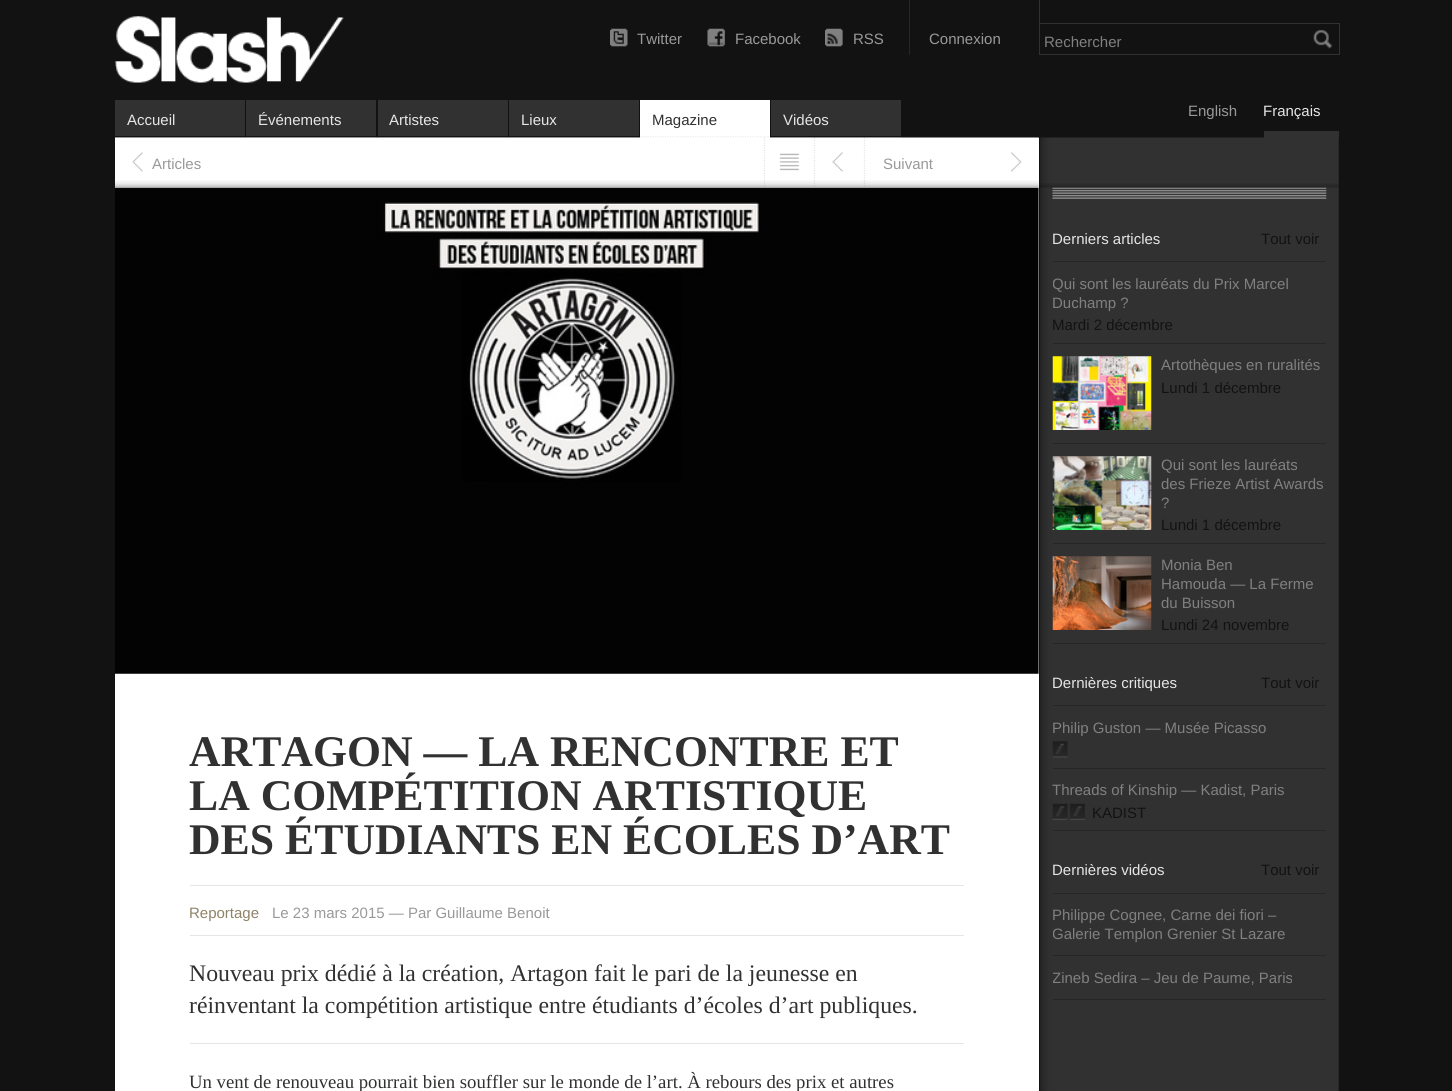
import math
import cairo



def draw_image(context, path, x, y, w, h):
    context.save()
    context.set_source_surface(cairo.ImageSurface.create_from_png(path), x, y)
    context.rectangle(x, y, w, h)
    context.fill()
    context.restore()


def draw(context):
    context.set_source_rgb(18 / 255, 18 / 255, 18 / 255)
    context.paint()
    draw_image(context, "images/1.png", 115, 16, 229, 67)
    draw_image(context, "images/2.png", 610, 28, 18, 19)
    draw_image(context, "images/3.png", 707, 28, 18, 19)
    draw_image(context, "images/4.png", 825, 28, 18, 19)
    context.set_source_rgb(38 / 255, 38 / 255, 38 / 255)
    context.rectangle(909, 0, 1, 55)
    context.fill()
    context.set_source_rgb(49 / 255, 49 / 255, 50 / 255)
    context.rectangle(1039, 0, 1, 55)
    context.fill()
    context.rectangle(1040, 23, 300, 1)
    context.fill()
    context.rectangle(1339, 23, 1, 32)
    context.fill()
    context.rectangle(1040, 54, 300, 1)
    context.fill()
    draw_image(context, "images/5.png", 1313, 29, 20, 20)
    context.rectangle(115, 100, 130, 38)
    context.fill()
    context.set_source_rgb(18 / 255, 18 / 255, 18 / 255)
    context.rectangle(115, 136, 130, 1)
    context.fill()
    context.set_source_rgb(49 / 255, 49 / 255, 50 / 255)
    context.rectangle(246, 100, 130, 38)
    context.fill()
    context.set_source_rgb(18 / 255, 18 / 255, 18 / 255)
    context.rectangle(246, 136, 130, 1)
    context.fill()
    context.set_source_rgb(49 / 255, 49 / 255, 50 / 255)
    context.rectangle(378, 100, 130, 38)
    context.fill()
    context.set_source_rgb(18 / 255, 18 / 255, 18 / 255)
    context.rectangle(378, 136, 130, 1)
    context.fill()
    context.set_source_rgb(49 / 255, 49 / 255, 50 / 255)
    context.rectangle(509, 100, 130, 38)
    context.fill()
    context.set_source_rgb(18 / 255, 18 / 255, 18 / 255)
    context.rectangle(509, 136, 130, 1)
    context.fill()
    context.set_source_rgb(1, 1, 1)
    context.rectangle(640, 100, 130, 38)
    context.fill()
    context.new_path()
    context.move_to(640, 137)
    context.line_to(770, 137)
    context.set_source_rgb(230 / 255, 230 / 255, 230 / 255)
    context.set_line_width(1.2)
    context.set_dash([1.25, 1.25])
    context.stroke()
    context.set_source_rgb(49 / 255, 49 / 255, 50 / 255)
    context.rectangle(771, 100, 130, 38)
    context.fill()
    context.set_source_rgb(18 / 255, 18 / 255, 18 / 255)
    context.rectangle(771, 136, 130, 1)
    context.fill()
    context.set_source_rgb(49 / 255, 49 / 255, 50 / 255)
    context.rectangle(1264, 131, 75, 7)
    context.fill()
    draw_image(context, "images/6.png", 115, 137, 1224, 954)
    context.set_source_rgb(1, 1, 1)
    context.rectangle(1038, 138, 1, 953)
    context.fill()
    draw_image(context, "images/7.png", 115, 180, 924, 8)
    draw_image(context, "images/8.png", 132, 152, 11, 20)
    context.new_path()
    context.move_to(764.5, 137.5)
    context.line_to(764.5, 187.5)
    context.set_source_rgba(0, 0, 0, 0.1)
    context.stroke()
    draw_image(context, "images/9.png", 779, 153, 20, 18)
    context.new_path()
    context.move_to(814.5, 137.5)
    context.line_to(814.5, 187.5)
    context.stroke()
    draw_image(context, "images/10.png", 832, 152, 11, 20)
    context.new_path()
    context.move_to(864.5, 137.5)
    context.line_to(864.5, 187.5)
    context.stroke()
    draw_image(context, "images/11.png", 1011, 152, 11, 20)
    draw_image(context, "images/12.png", 116, 188, 923, 486)
    draw_image(context, "images/13.png", 115, 187, 924, 487)
    context.set_source_rgb(230 / 255, 230 / 255, 230 / 255)
    context.rectangle(190, 885, 774, 1)
    context.fill()
    context.rectangle(190, 935, 774, 1)
    context.fill()
    context.rectangle(190, 1043, 774, 1)
    context.fill()
    draw_image(context, "images/14.png", 1040, 183, 299, 5)
    draw_image(context, "images/15.png", 1052, 187, 275, 12)
    context.set_source_rgb(38 / 255, 38 / 255, 38 / 255)
    context.rectangle(1053, 261, 273, 1)
    context.fill()
    context.rectangle(1053, 343, 273, 1)
    context.fill()
    context.rectangle(1053, 443, 273, 1)
    context.fill()
    draw_image(context, "images/16.png", 1052, 356, 100, 74)
    context.rectangle(1053, 543, 273, 1)
    context.fill()
    draw_image(context, "images/17.png", 1052, 456, 100, 74)
    context.rectangle(1053, 643, 273, 1)
    context.fill()
    draw_image(context, "images/18.png", 1052, 556, 100, 74)
    context.rectangle(1053, 705, 273, 1)
    context.fill()
    context.rectangle(1053, 768, 273, 1)
    context.fill()
    draw_image(context, "images/19.png", 1052, 741, 16, 17)
    context.rectangle(1053, 830, 273, 1)
    context.fill()
    draw_image(context, "images/20.png", 1052, 803, 33, 17)
    context.rectangle(1053, 893, 273, 1)
    context.fill()
    context.rectangle(1053, 955, 273, 1)
    context.fill()
    context.rectangle(1053, 999, 273, 1)
    context.fill()
    context.select_font_face("Liberation Sans")
    context.set_font_size(15)
    context.set_source_rgb(153 / 255, 153 / 255, 153 / 255)
    context.move_to(637, 44)
    context.show_text("Twitter")
    context.move_to(735, 44)
    context.show_text("Facebook")
    context.move_to(853, 44)
    context.show_text("RSS")
    context.move_to(929, 44)
    context.show_text("Connexion")
    context.set_source_rgb(128 / 255, 128 / 255, 128 / 255)
    context.move_to(1044, 47)
    context.show_text("Rechercher")
    context.set_source_rgb(230 / 255, 230 / 255, 230 / 255)
    context.move_to(127, 125)
    context.show_text("Accueil")
    context.move_to(258, 125)
    context.show_text("Événements")
    context.move_to(389, 125)
    context.show_text("Artistes")
    context.move_to(521, 125)
    context.show_text("Lieux")
    context.set_source_rgb(49 / 255, 49 / 255, 50 / 255)
    context.move_to(652, 125)
    context.show_text("Magazine")
    context.set_source_rgb(230 / 255, 230 / 255, 230 / 255)
    context.move_to(783, 125)
    context.show_text("Vidéos")
    context.set_source_rgb(153 / 255, 153 / 255, 153 / 255)
    context.move_to(1188, 116)
    context.show_text("English")
    context.set_source_rgb(230 / 255, 230 / 255, 230 / 255)
    context.move_to(1263, 116)
    context.show_text("Français")
    context.set_source_rgb(153 / 255, 153 / 255, 153 / 255)
    context.move_to(152, 169)
    context.show_text("Articles")
    context.move_to(883, 169)
    context.show_text("Suivant")
    context.select_font_face("Liberation Serif", cairo.FontSlant.NORMAL, cairo.FontWeight.BOLD)
    context.set_font_size(43.75)
    context.set_source_rgb(49 / 255, 49 / 255, 50 / 255)
    context.move_to(189, 766)
    context.show_text("ARTAGON — LA RENCONTRE ET")
    context.move_to(189, 810)
    context.show_text("LA COMPÉTITION ARTISTIQUE")
    context.move_to(189, 854)
    context.show_text("DES ÉTUDIANTS EN ÉCOLES D’ART")
    context.select_font_face("Liberation Sans")
    context.set_font_size(15)
    context.set_source_rgb(143 / 255, 131 / 255, 104 / 255)
    context.move_to(189, 918)
    context.show_text("Reportage")
    context.set_source_rgb(153 / 255, 153 / 255, 153 / 255)
    context.move_to(272, 918)
    context.show_text("Le 23 mars 2015 — Par Guillaume Benoit")
    context.select_font_face("Liberation Serif")
    context.set_font_size(23.75)
    context.set_source_rgb(49 / 255, 49 / 255, 50 / 255)
    context.move_to(189, 981)
    context.show_text("Nouveau prix dédié à la création, Artagon fait le pari de la jeunesse en")
    context.move_to(189, 1013)
    context.show_text("réinventant la compétition artistique entre étudiants d’écoles d’art publiques.")
    context.set_font_size(18.75)
    context.move_to(189, 1088)
    context.show_text("Un vent de renouveau pourrait bien souffler sur le monde de l’art. À rebours des prix et autres")
    context.select_font_face("Liberation Sans")
    context.set_font_size(15)
    context.set_source_rgb(230 / 255, 230 / 255, 230 / 255)
    context.move_to(1052, 244)
    context.show_text("Derniers articles")
    context.set_source_rgb(18 / 255, 18 / 255, 18 / 255)
    context.move_to(1261, 244)
    context.show_text("Tout voir")
    context.save()
    context.rectangle(1053, 263, 273, 80)
    context.clip()
    context.set_source_rgb(128 / 255, 128 / 255, 128 / 255)
    context.move_to(1052, 289)
    context.show_text("Qui sont les lauréats du Prix Marcel")
    context.restore()
    context.set_source_rgb(128 / 255, 128 / 255, 128 / 255)
    context.move_to(1052, 308)
    context.show_text("Duchamp ?")
    context.set_source_rgb(18 / 255, 18 / 255, 18 / 255)
    context.move_to(1052, 330)
    context.show_text("Mardi 2 décembre")
    context.set_source_rgb(128 / 255, 128 / 255, 128 / 255)
    context.move_to(1161, 370)
    context.show_text("Artothèques en ruralités")
    context.set_source_rgb(18 / 255, 18 / 255, 18 / 255)
    context.move_to(1161, 393)
    context.show_text("Lundi 1 décembre")
    context.set_source_rgb(128 / 255, 128 / 255, 128 / 255)
    context.move_to(1161, 470)
    context.show_text("Qui sont les lauréats")
    context.move_to(1161, 489)
    context.show_text("des Frieze Artist Awards")
    context.move_to(1161, 508)
    context.show_text("?")
    context.set_source_rgb(18 / 255, 18 / 255, 18 / 255)
    context.move_to(1161, 530)
    context.show_text("Lundi 1 décembre")
    context.set_source_rgb(128 / 255, 128 / 255, 128 / 255)
    context.move_to(1161, 570)
    context.show_text("Monia Ben")
    context.move_to(1161, 589)
    context.show_text("Hamouda — La Ferme")
    context.move_to(1161, 608)
    context.show_text("du Buisson")
    context.set_source_rgb(18 / 255, 18 / 255, 18 / 255)
    context.move_to(1161, 630)
    context.show_text("Lundi 24 novembre")
    context.set_source_rgb(230 / 255, 230 / 255, 230 / 255)
    context.move_to(1052, 688)
    context.show_text("Dernières critiques")
    context.set_source_rgb(18 / 255, 18 / 255, 18 / 255)
    context.move_to(1261, 688)
    context.show_text("Tout voir")
    context.set_source_rgb(128 / 255, 128 / 255, 128 / 255)
    context.move_to(1052, 733)
    context.show_text("Philip Guston — Musée Picasso")
    context.move_to(1052, 795)
    context.show_text("Threads of Kinship — Kadist, Paris")
    context.set_source_rgb(18 / 255, 18 / 255, 18 / 255)
    context.move_to(1092, 818)
    context.show_text("KADIST")
    context.set_source_rgb(230 / 255, 230 / 255, 230 / 255)
    context.move_to(1052, 875)
    context.show_text("Dernières vidéos")
    context.set_source_rgb(18 / 255, 18 / 255, 18 / 255)
    context.move_to(1261, 875)
    context.show_text("Tout voir")
    context.set_source_rgb(128 / 255, 128 / 255, 128 / 255)
    context.move_to(1052, 920)
    context.show_text("Philippe Cognee, Carne dei fiori –")
    context.save()
    context.rectangle(1053, 894, 273, 61)
    context.clip()
    context.move_to(1052, 939)
    context.show_text("Galerie Templon Grenier St Lazare")
    context.restore()
    context.save()
    context.rectangle(1053, 956, 273, 43)
    context.clip()
    context.move_to(1052, 983)
    context.show_text("Zineb Sedira – Jeu de Paume, Paris")
    context.restore()


surface = cairo.ImageSurface(cairo.Format.RGB24, 1452, 1091)
context = cairo.Context(surface)
options = cairo.FontOptions()
options.set_hint_metrics(cairo.HintMetrics.OFF)
options.set_hint_style(cairo.HintStyle.NONE)
context.set_font_options(options)
context.set_miter_limit(4)
draw(context)
surface.write_to_png("out.png")
